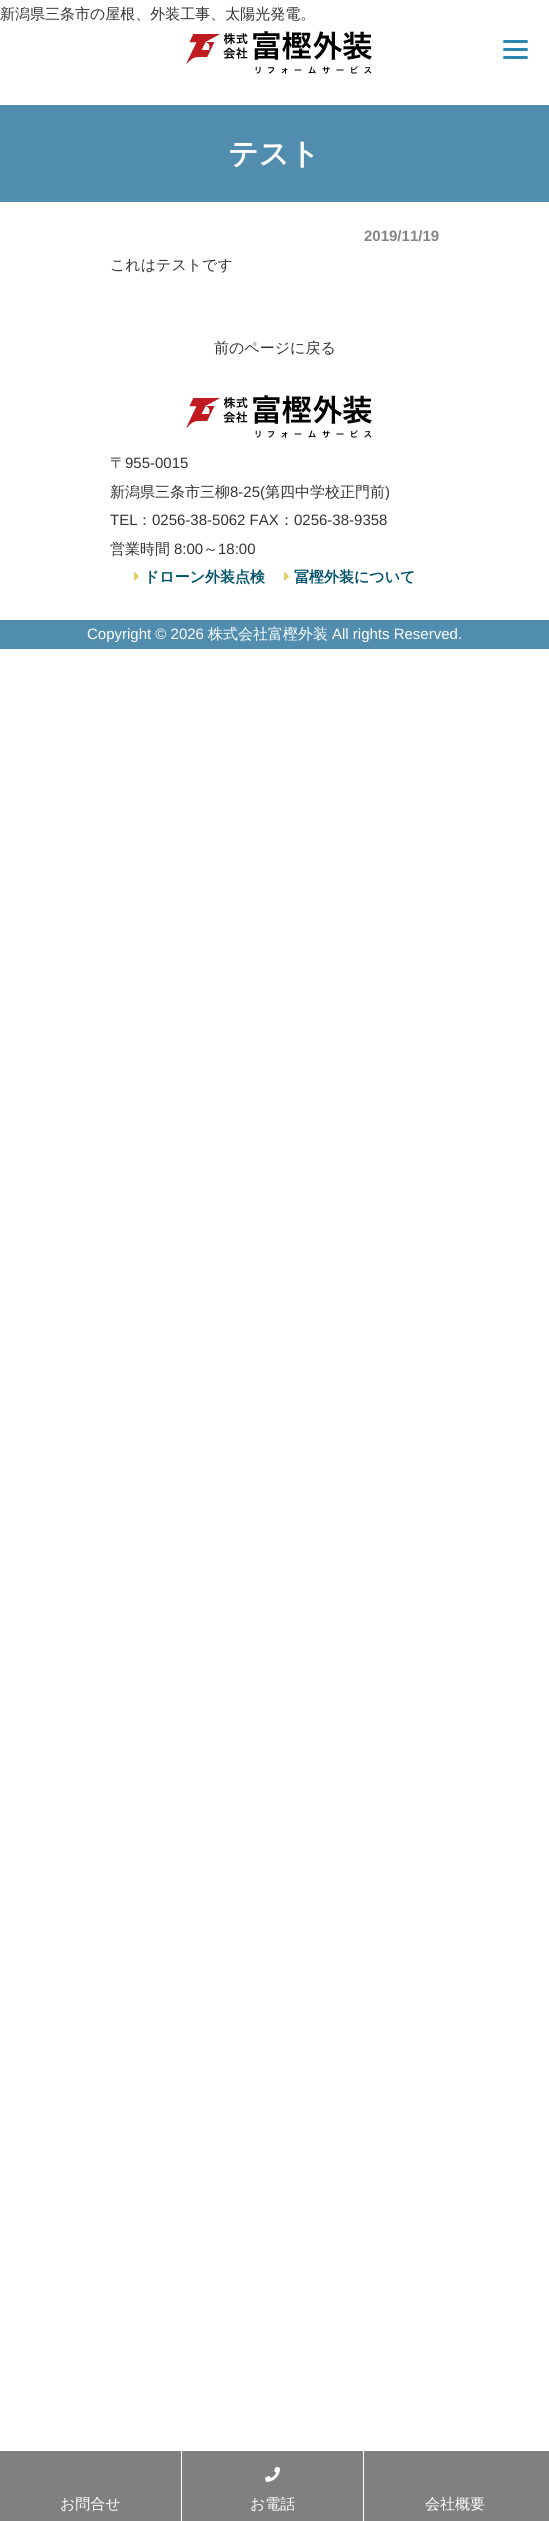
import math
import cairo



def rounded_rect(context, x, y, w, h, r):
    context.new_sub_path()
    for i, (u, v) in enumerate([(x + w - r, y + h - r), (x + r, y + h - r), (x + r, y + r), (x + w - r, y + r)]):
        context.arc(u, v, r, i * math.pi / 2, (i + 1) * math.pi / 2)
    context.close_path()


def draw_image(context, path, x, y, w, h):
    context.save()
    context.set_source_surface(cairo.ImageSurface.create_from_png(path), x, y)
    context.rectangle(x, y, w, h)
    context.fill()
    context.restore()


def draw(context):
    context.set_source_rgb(1, 1, 1)
    context.paint()
    draw_image(context, "images/1.png", 186, 31, 186, 43)
    context.set_source_rgb(43 / 255, 135 / 255, 175 / 255)
    rounded_rect(context, 503, 40, 25, 3, 1.5)
    context.fill()
    rounded_rect(context, 503, 48, 25, 3, 1.5)
    context.fill()
    rounded_rect(context, 503, 56, 25, 3, 1.5)
    context.fill()
    context.set_source_rgb(81 / 255, 141 / 255, 175 / 255)
    context.rectangle(0, 105, 549, 97)
    context.fill()
    draw_image(context, "images/1.png", 186, 395, 186, 43)
    draw_image(context, "images/2.png", 134, 572, 5, 9)
    draw_image(context, "images/2.png", 284, 572, 5, 9)
    context.rectangle(0, 620, 549, 29)
    context.fill()
    context.set_source_rgb(128 / 255, 128 / 255, 128 / 255)
    context.rectangle(0, 2451, 549, 70)
    context.fill()
    context.set_source_rgb(1, 1, 1)
    context.rectangle(181, 2451, 1, 70)
    context.fill()
    context.rectangle(363, 2451, 1, 70)
    context.fill()
    draw_image(context, "images/3.png", 265, 2466, 15, 16)
    context.select_font_face("WenQuanYi Zen Hei Medium")
    context.set_font_size(15)
    context.set_source_rgb(51 / 255, 51 / 255, 51 / 255)
    context.move_to(0, 19)
    context.show_text("新潟県三条市の屋根、外装工事、太陽光発電。")
    context.select_font_face("WenQuanYi Zen Hei", cairo.FontSlant.NORMAL, cairo.FontWeight.BOLD)
    context.set_font_size(30)
    context.set_source_rgb(1, 1, 1)
    context.move_to(228, 164)
    context.show_text("テスト")
    context.select_font_face("Liberation Sans", cairo.FontSlant.NORMAL, cairo.FontWeight.BOLD)
    context.set_font_size(15)
    context.set_source_rgb(133 / 255, 133 / 255, 133 / 255)
    context.move_to(364, 241)
    context.show_text("2019/11/19")
    context.select_font_face("WenQuanYi Zen Hei Medium")
    context.set_source_rgb(51 / 255, 51 / 255, 51 / 255)
    context.move_to(110, 270)
    context.show_text("これはテストです")
    context.move_to(214, 353)
    context.show_text("前のページに戻る")
    context.move_to(110, 468)
    context.show_text("〒")
    context.select_font_face("Liberation Sans")
    context.move_to(125, 468)
    context.show_text("955-0015")
    context.select_font_face("WenQuanYi Zen Hei Medium")
    context.move_to(110, 497)
    context.show_text("新潟県三条市三柳")
    context.select_font_face("Liberation Sans")
    context.move_to(230, 497)
    context.show_text("8-25(")
    context.select_font_face("WenQuanYi Zen Hei Medium")
    context.move_to(265, 497)
    context.show_text("第四中学校正門前")
    context.select_font_face("Liberation Sans")
    context.move_to(385, 497)
    context.show_text(")")
    context.move_to(110, 525)
    context.show_text("TEL")
    context.select_font_face("WenQuanYi Zen Hei Medium")
    context.move_to(137, 525)
    context.show_text("：")
    context.select_font_face("Liberation Sans")
    context.move_to(152, 525)
    context.show_text("0256-38-5062 FAX")
    context.select_font_face("WenQuanYi Zen Hei Medium")
    context.move_to(279, 525)
    context.show_text("：")
    context.select_font_face("Liberation Sans")
    context.move_to(294, 525)
    context.show_text("0256-38-9358")
    context.select_font_face("WenQuanYi Zen Hei Medium")
    context.move_to(110, 554)
    context.show_text("営業時間")
    context.select_font_face("Liberation Sans")
    context.move_to(174, 554)
    context.show_text("8:00")
    context.select_font_face("WenQuanYi Zen Hei Medium")
    context.move_to(203, 554)
    context.show_text("～")
    context.select_font_face("Liberation Sans")
    context.move_to(218, 554)
    context.show_text("18:00")
    context.select_font_face("WenQuanYi Zen Hei", cairo.FontSlant.NORMAL, cairo.FontWeight.BOLD)
    context.set_source_rgb(0, 82 / 255, 107 / 255)
    context.move_to(144, 582)
    context.show_text("ドローン外装点検")
    context.move_to(294, 582)
    context.show_text("冨樫外装について")
    context.select_font_face("Liberation Sans")
    context.set_source_rgb(1, 1, 1)
    context.move_to(87, 639)
    context.show_text("Copyright © 2026")
    context.select_font_face("WenQuanYi Zen Hei Medium")
    context.move_to(208, 639)
    context.show_text("株式会社富樫外装")
    context.select_font_face("Liberation Sans")
    context.move_to(332, 639)
    context.show_text("All rights Reserved.")
    context.select_font_face("WenQuanYi Zen Hei Medium")
    context.move_to(60, 2509)
    context.show_text("お問合せ")
    context.move_to(250, 2509)
    context.show_text("お電話")
    context.move_to(425, 2509)
    context.show_text("会社概要")


surface = cairo.ImageSurface(cairo.Format.RGB24, 549, 2521)
context = cairo.Context(surface)
options = cairo.FontOptions()
options.set_hint_metrics(cairo.HintMetrics.OFF)
options.set_hint_style(cairo.HintStyle.NONE)
context.set_font_options(options)
context.set_miter_limit(4)
draw(context)
surface.write_to_png("out.png")
